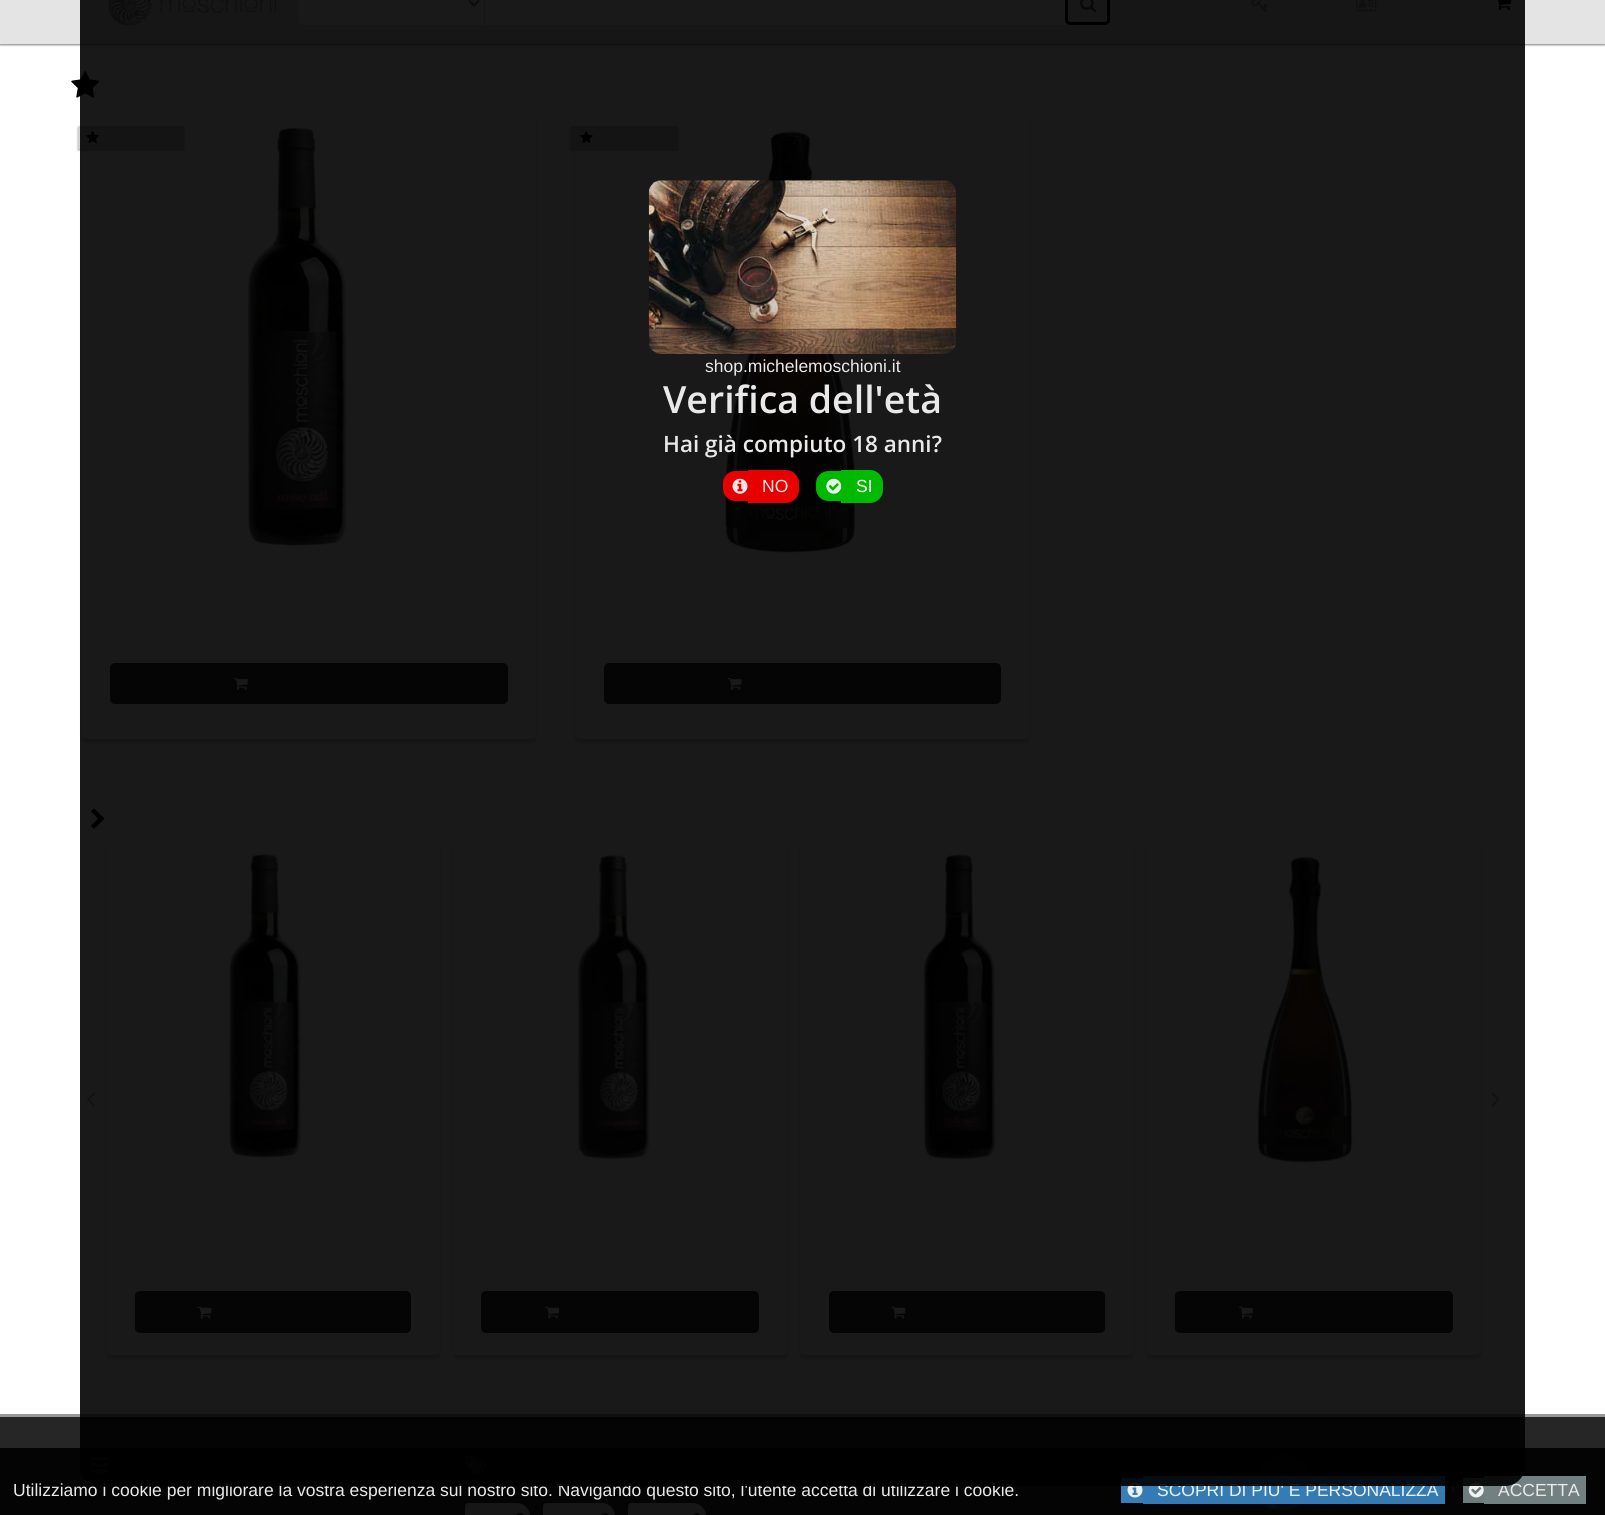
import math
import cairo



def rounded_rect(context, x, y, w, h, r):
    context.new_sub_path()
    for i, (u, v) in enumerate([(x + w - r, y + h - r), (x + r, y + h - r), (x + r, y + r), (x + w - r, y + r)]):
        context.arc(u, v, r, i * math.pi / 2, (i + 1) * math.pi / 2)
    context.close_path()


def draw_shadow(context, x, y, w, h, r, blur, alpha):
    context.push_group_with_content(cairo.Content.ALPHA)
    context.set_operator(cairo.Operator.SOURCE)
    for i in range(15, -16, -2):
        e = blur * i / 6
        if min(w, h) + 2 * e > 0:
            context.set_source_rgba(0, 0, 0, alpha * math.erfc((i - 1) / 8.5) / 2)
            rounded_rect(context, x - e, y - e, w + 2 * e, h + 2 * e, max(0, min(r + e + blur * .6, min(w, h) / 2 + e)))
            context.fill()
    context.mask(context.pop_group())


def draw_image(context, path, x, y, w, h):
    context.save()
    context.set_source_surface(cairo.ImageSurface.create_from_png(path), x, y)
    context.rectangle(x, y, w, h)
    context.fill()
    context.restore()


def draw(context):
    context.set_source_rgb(1, 1, 1)
    context.paint()
    context.set_source_rgb(0, 0, 0)
    draw_shadow(context, 0, -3, 1605, 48, 0, 1, 0.5)
    context.set_source_rgb(228 / 255, 228 / 255, 228 / 255)
    context.rectangle(0, 0, 1605, 44)
    context.fill()
    draw_image(context, "images/1.png", 108, 0, 168, 26)
    context.set_source_rgb(1, 1, 1)
    context.new_path()
    context.move_to(303, -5)
    context.line_to(485, -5)
    context.line_to(485, 25)
    context.line_to(303, 25)
    context.curve_to(300, 25, 298, 23, 298, 20)
    context.line_to(298, 0)
    context.curve_to(298, -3, 300, -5, 303, -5)
    context.close_path()
    context.fill()
    context.set_source_rgb(204 / 255, 204 / 255, 204 / 255)
    context.rectangle(484, 0, 1, 25)
    context.fill()
    context.new_path()
    context.move_to(469, 0.5)
    context.line_to(474, 5.5)
    context.line_to(479, 0.5)
    context.set_source_rgb(128 / 255, 128 / 255, 128 / 255)
    context.set_line_width(2.5)
    context.stroke()
    context.set_source_rgb(1, 1, 1)
    context.rectangle(485, 0, 585, 25)
    context.fill()
    context.set_source_rgb(230 / 255, 230 / 255, 230 / 255)
    rounded_rect(context, 1066.5, -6.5, 42, 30, 3.5)
    context.fill_preserve()
    context.set_source_rgb(0, 0, 0)
    context.set_line_width(3)
    context.stroke()
    draw_image(context, "images/2.png", 1080, 0, 17, 13)
    draw_image(context, "images/3.png", 1251, 0, 17, 12)
    draw_image(context, "images/4.png", 1356, 0, 21, 12)
    draw_image(context, "images/5.png", 1498, 0, 14, 10)
    draw_image(context, "images/6.png", 71, 71, 29, 27)
    context.set_source_rgb(0, 0, 0)
    draw_shadow(context, 81, 114, 455, 625, 5, 0.5, 0.15)
    draw_shadow(context, 81, 118, 455, 625, 5, 1, 0.15)
    context.set_source_rgb(1, 1, 1)
    rounded_rect(context, 81, 114, 455, 625, 5)
    context.fill()
    context.set_source_rgb(0, 0, 0)
    draw_shadow(context, 78, 128, 106, 22, 0, 1, 0.4)
    context.set_source_rgb(209 / 255, 209 / 255, 209 / 255)
    context.rectangle(78, 126, 106, 23)
    context.fill()
    draw_image(context, "images/7.png", 86, 131, 13, 13)
    draw_image(context, "images/8.png", 247, 127, 100, 419)
    context.set_source_rgb(51 / 255, 51 / 255, 51 / 255)
    rounded_rect(context, 110, 663, 398, 41, 5)
    context.fill()
    draw_image(context, "images/9.png", 233, 678, 15, 12)
    context.set_source_rgb(0, 0, 0)
    draw_shadow(context, 575, 114, 455, 625, 5, 0.5, 0.15)
    draw_shadow(context, 575, 118, 455, 625, 5, 1, 0.15)
    context.set_source_rgb(1, 1, 1)
    rounded_rect(context, 575, 114, 455, 625, 5)
    context.fill()
    context.set_source_rgb(0, 0, 0)
    draw_shadow(context, 571, 128, 107, 22, 0, 1, 0.4)
    context.set_source_rgb(209 / 255, 209 / 255, 209 / 255)
    context.rectangle(571, 126, 107, 23)
    context.fill()
    draw_image(context, "images/10.png", 580, 131, 13, 13)
    draw_image(context, "images/11.png", 724, 129, 131, 425)
    context.set_source_rgb(51 / 255, 51 / 255, 51 / 255)
    rounded_rect(context, 604, 663, 397, 41, 5)
    context.fill()
    draw_image(context, "images/12.png", 727, 678, 15, 12)
    draw_image(context, "images/13.png", 91, 808, 14, 21)
    context.set_source_rgb(0, 0, 0)
    draw_shadow(context, 106, 841, 334, 514, 5, 0.5, 0.15)
    draw_shadow(context, 106, 845, 334, 514, 5, 1, 0.15)
    context.set_source_rgb(1, 1, 1)
    rounded_rect(context, 106, 841, 334, 514, 5)
    context.fill()
    draw_image(context, "images/14.png", 229, 854, 73, 304)
    context.set_source_rgb(51 / 255, 51 / 255, 51 / 255)
    rounded_rect(context, 135, 1291, 276, 42, 5)
    context.fill()
    draw_image(context, "images/15.png", 197, 1306, 15, 13)
    context.set_source_rgb(0, 0, 0)
    draw_shadow(context, 453, 841, 335, 514, 5, 0.5, 0.15)
    draw_shadow(context, 453, 845, 335, 514, 5, 1, 0.15)
    context.set_source_rgb(1, 1, 1)
    rounded_rect(context, 453, 841, 335, 514, 5)
    context.fill()
    draw_image(context, "images/16.png", 577, 855, 73, 305)
    context.set_source_rgb(51 / 255, 51 / 255, 51 / 255)
    rounded_rect(context, 481, 1291, 278, 42, 5)
    context.fill()
    draw_image(context, "images/17.png", 545, 1306, 14, 13)
    context.set_source_rgb(0, 0, 0)
    draw_shadow(context, 800, 841, 334, 514, 5, 0.5, 0.15)
    draw_shadow(context, 800, 845, 334, 514, 5, 1, 0.15)
    context.set_source_rgb(1, 1, 1)
    rounded_rect(context, 800, 841, 334, 514, 5)
    context.fill()
    draw_image(context, "images/18.png", 923, 854, 73, 306)
    context.set_source_rgb(51 / 255, 51 / 255, 51 / 255)
    rounded_rect(context, 829, 1291, 276, 42, 5)
    context.fill()
    draw_image(context, "images/19.png", 891, 1306, 15, 13)
    context.set_source_rgb(0, 0, 0)
    draw_shadow(context, 1146, 841, 335, 514, 5, 0.5, 0.15)
    draw_shadow(context, 1146, 845, 335, 514, 5, 1, 0.15)
    context.set_source_rgb(1, 1, 1)
    rounded_rect(context, 1146, 841, 335, 514, 5)
    context.fill()
    draw_image(context, "images/20.png", 1257, 856, 96, 307)
    context.set_source_rgb(51 / 255, 51 / 255, 51 / 255)
    rounded_rect(context, 1175, 1291, 278, 42, 5)
    context.fill()
    draw_image(context, "images/21.png", 1238, 1306, 15, 13)
    draw_image(context, "images/22.png", 87, 1092, 8, 15)
    draw_image(context, "images/23.png", 1491, 1092, 9, 15)
    context.set_source_rgb(38 / 255, 38 / 255, 38 / 255)
    context.rectangle(0, 1417, 1605, 31)
    context.fill()
    context.set_source_rgb(4 / 255, 4 / 255, 4 / 255)
    context.rectangle(0, 1448, 1605, 67)
    context.fill()
    context.set_source_rgb(153 / 255, 153 / 255, 153 / 255)
    context.rectangle(0, 1414, 1605, 3)
    context.fill()
    draw_image(context, "images/27.png", 90, 1457, 19, 16)
    draw_image(context, "images/28.png", 465, 1455, 23, 19)
    context.set_source_rgb(22 / 255, 22 / 255, 22 / 255)
    context.new_path()
    context.move_to(468, 1503)
    context.line_to(517, 1503)
    context.curve_to(524, 1503, 530, 1509, 530, 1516)
    context.line_to(530, 1515)
    context.curve_to(530, 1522, 524, 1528, 517, 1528)
    context.line_to(468, 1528)
    context.curve_to(466.5, 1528, 465, 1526.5, 465, 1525)
    context.line_to(465, 1506)
    context.curve_to(465, 1504.5, 466.5, 1503, 468, 1503)
    context.close_path()
    context.fill()
    context.set_source_rgb(5 / 255, 5 / 255, 5 / 255)
    rounded_rect(context, 516, 1513, 8, 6, 3.5)
    context.fill()
    context.set_source_rgb(22 / 255, 22 / 255, 22 / 255)
    context.new_path()
    context.move_to(546, 1503)
    context.line_to(602, 1503)
    context.curve_to(609, 1503, 615, 1509, 615, 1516)
    context.line_to(615, 1515)
    context.curve_to(615, 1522, 609, 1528, 602, 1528)
    context.line_to(546, 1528)
    context.curve_to(544.5, 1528, 543, 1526.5, 543, 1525)
    context.line_to(543, 1506)
    context.curve_to(543, 1504.5, 544.5, 1503, 546, 1503)
    context.close_path()
    context.fill()
    context.set_source_rgb(5 / 255, 5 / 255, 5 / 255)
    rounded_rect(context, 601, 1513, 8, 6, 3.5)
    context.fill()
    context.set_source_rgb(22 / 255, 22 / 255, 22 / 255)
    context.new_path()
    context.move_to(631, 1503)
    context.line_to(693, 1503)
    context.curve_to(700, 1503, 706, 1509, 706, 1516)
    context.line_to(706, 1515)
    context.curve_to(706, 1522, 700, 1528, 693, 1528)
    context.line_to(631, 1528)
    context.curve_to(629.5, 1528, 628, 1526.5, 628, 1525)
    context.line_to(628, 1506)
    context.curve_to(628, 1504.5, 629.5, 1503, 631, 1503)
    context.close_path()
    context.fill()
    context.set_source_rgb(5 / 255, 5 / 255, 5 / 255)
    rounded_rect(context, 693, 1513, 7, 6, 3.5)
    context.fill()
    draw_image(context, "images/29.png", 1255, 1454, 218, 57)
    context.set_source_rgb(57 / 255, 127 / 255, 183 / 255)
    context.rectangle(1121, 1478, 22, 25)
    context.fill()
    context.set_source_rgba(59 / 255, 137 / 255, 199 / 255, 0.9)
    context.rectangle(1143, 1476, 302, 28)
    context.fill()
    draw_image(context, "images/30.png", 1127, 1482, 16, 16)
    context.set_source_rgba(123 / 255, 138 / 255, 139 / 255, 0.9)
    context.rectangle(1463, 1478, 21, 25)
    context.fill()
    context.set_source_rgb(115 / 255, 128 / 255, 129 / 255)
    context.rectangle(1484, 1476, 102, 28)
    context.fill()
    draw_image(context, "images/31.png", 1468, 1482, 16, 16)
    context.select_font_face("Liberation Sans")
    context.set_font_size(17.5)
    context.set_source_rgb(233 / 255, 233 / 255, 233 / 255)
    context.move_to(13, 1496)
    context.show_text("Utilizziamo i cookie per migliorare la vostra esperienza sul nostro sito. Navigando questo sito, l'utente accetta di utilizzare i cookie.")
    context.set_source_rgb(235 / 255, 242 / 255, 247 / 255)
    context.move_to(1157, 1496)
    context.show_text("SCOPRI DI PIU' E PERSONALIZZA")
    context.set_source_rgb(233 / 255, 233 / 255, 233 / 255)
    context.move_to(1498, 1496)
    context.show_text("ACCETTA")
    context.set_source_rgba(0, 0, 0, 0.9)
    rounded_rect(context, 80, -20, 1445, 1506, 20)
    context.fill()
    context.set_source_rgba(0, 204 / 255, 0, 0.9)
    context.new_path()
    context.move_to(841, 470)
    context.line_to(870, 470)
    context.curve_to(877, 470, 883, 476, 883, 483)
    context.line_to(883, 490)
    context.curve_to(883, 497, 877, 503, 870, 503)
    context.line_to(841, 503)
    context.close_path()
    context.fill()
    context.set_source_rgb(1, 1, 1)
    context.move_to(856, 492)
    context.show_text("SI")
    context.set_source_rgba(0, 204 / 255, 0, 0.9)
    context.new_path()
    context.move_to(828.5, 471)
    context.line_to(841, 471)
    context.line_to(841, 501)
    context.line_to(828.5, 501)
    context.curve_to(821.5, 501, 816, 495.5, 816, 488.5)
    context.line_to(816, 483.5)
    context.curve_to(816, 476.5, 821.5, 471, 828.5, 471)
    context.close_path()
    context.fill()
    draw_image(context, "images/26.png", 826, 478, 16, 16)
    context.set_source_rgba(1, 0, 0, 0.9)
    context.new_path()
    context.move_to(748, 470)
    context.line_to(786, 470)
    context.curve_to(793, 470, 799, 476, 799, 483)
    context.line_to(799, 490)
    context.curve_to(799, 497, 793, 503, 786, 503)
    context.line_to(748, 503)
    context.close_path()
    context.fill()
    context.set_source_rgb(253 / 255, 230 / 255, 230 / 255)
    context.move_to(762, 492)
    context.show_text("NO")
    context.set_source_rgba(1, 0, 0, 0.9)
    context.new_path()
    context.move_to(735.5, 471)
    context.line_to(748, 471)
    context.line_to(748, 501)
    context.line_to(735.5, 501)
    context.curve_to(728.5, 501, 723, 495.5, 723, 488.5)
    context.line_to(723, 483.5)
    context.curve_to(723, 476.5, 728.5, 471, 735.5, 471)
    context.close_path()
    context.fill()
    draw_image(context, "images/25.png", 732, 478, 16, 16)
    context.select_font_face("Open Sans SemiBold")
    context.set_font_size(22.5)
    context.set_source_rgb(233 / 255, 233 / 255, 233 / 255)
    context.move_to(663, 452)
    context.show_text("Hai già compiuto 18 anni?")
    context.set_font_size(37.5)
    context.move_to(663, 413)
    context.show_text("Verifica dell'età")
    context.select_font_face("Liberation Sans")
    context.set_font_size(17.5)
    context.move_to(705, 372)
    context.show_text("shop.michelemoschioni.it")
    draw_image(context, "images/24.png", 648, 180, 309, 174)


surface = cairo.ImageSurface(cairo.Format.RGB24, 1605, 1515)
context = cairo.Context(surface)
options = cairo.FontOptions()
options.set_hint_metrics(cairo.HintMetrics.OFF)
options.set_hint_style(cairo.HintStyle.NONE)
context.set_font_options(options)
context.set_miter_limit(4)
draw(context)
surface.write_to_png("out.png")
